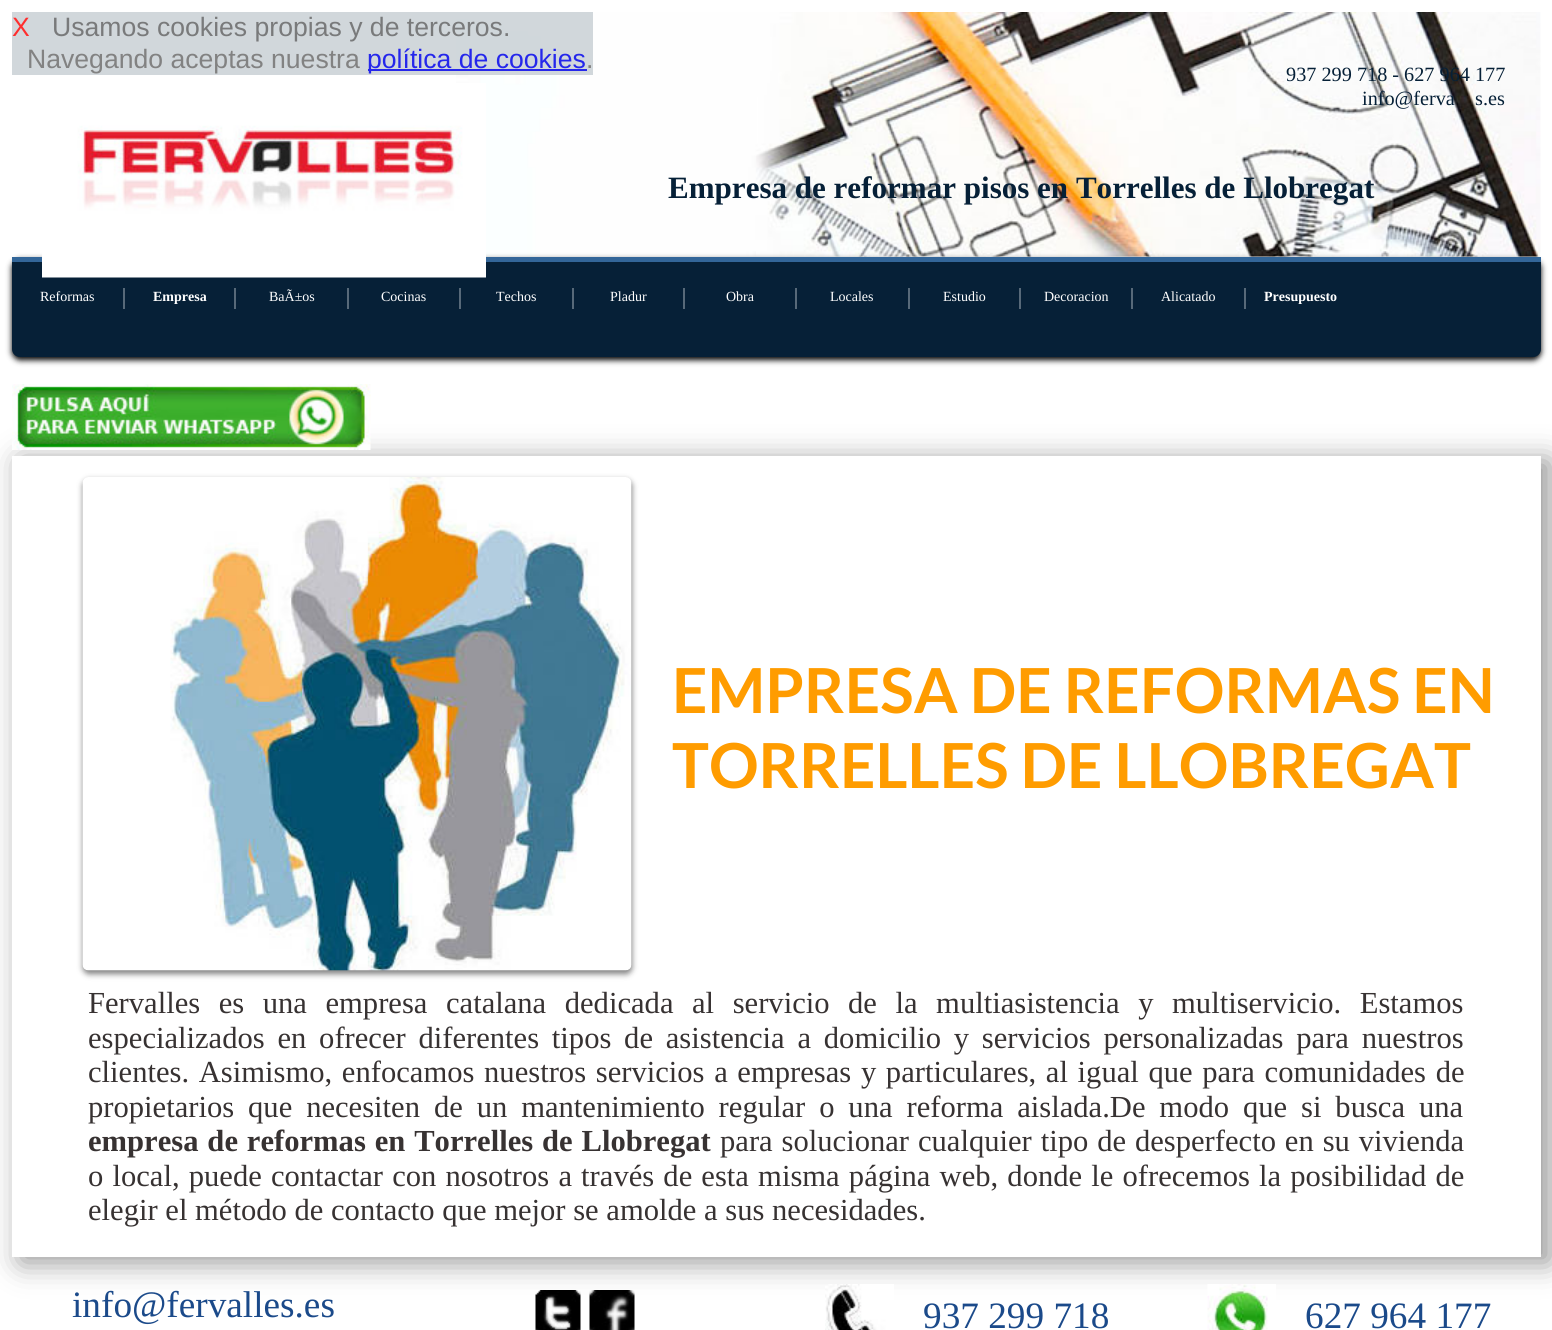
import math
import cairo



def draw_spaced(context, x, y, s, letter, word):
    context.move_to(x, y)
    for ch in s:
        context.show_text(ch)
        context.rel_move_to(letter + word * (ch == ' '), 0)


def rounded_rect(context, x, y, w, h, r):
    context.new_sub_path()
    for i, (u, v) in enumerate([(x + w - r, y + h - r), (x + r, y + h - r), (x + r, y + r), (x + w - r, y + r)]):
        context.arc(u, v, r, i * math.pi / 2, (i + 1) * math.pi / 2)
    context.close_path()


def draw_shadow(context, x, y, w, h, r, blur, alpha):
    context.push_group_with_content(cairo.Content.ALPHA)
    context.set_operator(cairo.Operator.SOURCE)
    for i in range(15, -16, -2):
        e = blur * i / 6
        if min(w, h) + 2 * e > 0:
            context.set_source_rgba(0, 0, 0, alpha * math.erfc((i - 1) / 8.5) / 2)
            rounded_rect(context, x - e, y - e, w + 2 * e, h + 2 * e, max(0, min(r + e + blur * .6, min(w, h) / 2 + e)))
            context.fill()
    context.mask(context.pop_group())


def draw_image(context, path, x, y, w, h):
    context.save()
    context.set_source_surface(cairo.ImageSurface.create_from_png(path), x, y)
    context.rectangle(x, y, w, h)
    context.fill()
    context.restore()


def draw(context):
    context.set_source_rgb(1, 1, 1)
    context.paint()
    draw_image(context, "images/1.png", 456, 12, 1085, 245)
    context.set_source_rgba(199 / 255, 206 / 255, 211 / 255, 0.82)
    context.rectangle(12, 12, 581, 63)
    context.fill()
    context.set_source_rgb(38 / 255, 39 / 255, 235 / 255)
    context.rectangle(368, 69, 219, 2)
    context.fill()
    context.set_source_rgb(0, 0, 0)
    draw_shadow(context, 12, 260, 1529, 100, 8, 3, 1)
    context.set_source_rgb(6 / 255, 32 / 255, 55 / 255)
    context.new_path()
    context.move_to(12, 257)
    context.line_to(1541, 257)
    context.line_to(1541, 349)
    context.curve_to(1541, 353.5, 1537.5, 357, 1533, 357)
    context.line_to(20, 357)
    context.curve_to(15.5, 357, 12, 353.5, 12, 349)
    context.close_path()
    context.fill()
    context.set_source_rgb(51 / 255, 102 / 255, 153 / 255)
    context.rectangle(12, 257, 1529, 5)
    context.fill()
    draw_image(context, "images/2.png", 42, 83, 444, 195)
    context.set_source_rgb(87 / 255, 105 / 255, 121 / 255)
    context.rectangle(123, 288, 2, 21)
    context.fill()
    context.rectangle(234, 288, 2, 21)
    context.fill()
    context.rectangle(347, 288, 2, 21)
    context.fill()
    context.rectangle(459, 288, 2, 21)
    context.fill()
    context.rectangle(572, 288, 2, 21)
    context.fill()
    context.rectangle(683, 288, 2, 21)
    context.fill()
    context.rectangle(795, 288, 2, 21)
    context.fill()
    context.rectangle(908, 288, 2, 21)
    context.fill()
    context.rectangle(1019, 288, 2, 21)
    context.fill()
    context.rectangle(1131, 288, 2, 21)
    context.fill()
    context.rectangle(1244, 288, 2, 21)
    context.fill()
    context.save()
    context.set_fill_rule(cairo.FillRule.EVEN_ODD)
    context.new_path()
    context.move_to(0, 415)
    context.line_to(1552, 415)
    context.line_to(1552, 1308)
    context.line_to(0, 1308)
    context.close_path()
    context.move_to(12, 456)
    context.line_to(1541, 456)
    context.line_to(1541, 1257)
    context.line_to(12, 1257)
    context.close_path()
    context.clip()
    context.set_source_rgb(50 / 255, 50 / 255, 50 / 255)
    draw_shadow(context, 21, 461, 1529, 801, 0, 15, 0.53)
    context.restore()
    draw_image(context, "images/3.png", 12, 384, 359, 66)
    context.set_source_rgb(0, 0, 0)
    draw_shadow(context, 83, 480, 549, 494, 6, 3, 0.5)
    draw_image(context, "images/4.png", 82, 477, 550, 494)
    draw_image(context, "images/5.png", 535, 1290, 46, 40)
    draw_image(context, "images/6.png", 589, 1290, 46, 40)
    draw_image(context, "images/7.png", 825, 1284, 69, 46)
    draw_image(context, "images/8.png", 1207, 1284, 69, 46)
    context.select_font_face("Liberation Sans")
    context.set_font_size(26.6)
    context.set_source_rgb(1, 46 / 255, 46 / 255)
    context.move_to(12, 36)
    context.show_text("X")
    context.set_source_rgb(121 / 255, 122 / 255, 123 / 255)
    context.move_to(52, 36)
    context.show_text("Usamos cookies propias y de terceros.")
    context.set_source_rgb(130 / 255, 130 / 255, 130 / 255)
    context.move_to(27, 68)
    context.show_text("Navegando aceptas nuestra")
    context.set_source_rgb(37 / 255, 39 / 255, 235 / 255)
    context.move_to(367, 68)
    context.show_text("política de cookies")
    context.set_source_rgb(130 / 255, 130 / 255, 130 / 255)
    context.move_to(586, 68)
    context.show_text(".")
    context.select_font_face("Liberation Serif", cairo.FontSlant.NORMAL, cairo.FontWeight.BOLD)
    context.set_font_size(31.05)
    context.set_source_rgb(6 / 255, 32 / 255, 55 / 255)
    context.move_to(668, 198)
    context.show_text("Empresa de reformar pisos en Torrelles de Llobregat")
    context.select_font_face("Liberation Serif")
    context.set_font_size(20.25)
    context.move_to(1286, 81)
    context.show_text("937 299 718 - 627 964 177")
    context.move_to(1362, 105)
    context.show_text("info@ferva")
    context.move_to(1475, 105)
    context.show_text("s.es")
    context.set_font_size(14)
    context.set_source_rgb(1, 1, 1)
    context.move_to(40, 301)
    context.show_text("Reformas")
    context.select_font_face("Liberation Serif", cairo.FontSlant.NORMAL, cairo.FontWeight.BOLD)
    context.move_to(153, 301)
    context.show_text("Empresa")
    context.select_font_face("Liberation Serif")
    context.move_to(269, 301)
    context.show_text("BaÃ±os")
    context.move_to(381, 301)
    context.show_text("Cocinas")
    context.move_to(496, 301)
    context.show_text("Techos")
    context.move_to(610, 301)
    context.show_text("Pladur")
    context.move_to(726, 301)
    context.show_text("Obra")
    context.move_to(830, 301)
    context.show_text("Locales")
    context.move_to(943, 301)
    context.show_text("Estudio")
    context.move_to(1044, 301)
    context.show_text("Decoracion")
    context.move_to(1161, 301)
    context.show_text("Alicatado")
    context.select_font_face("Liberation Serif", cairo.FontSlant.NORMAL, cairo.FontWeight.BOLD)
    context.move_to(1264, 301)
    context.show_text("Presupuesto")
    context.select_font_face("Lato", cairo.FontSlant.NORMAL, cairo.FontWeight.BOLD)
    context.set_font_size(62.1)
    context.set_source_rgb(1, 156 / 255, 0)
    context.move_to(672, 713)
    context.show_text("EMPRESA DE REFORMAS EN")
    context.move_to(672, 788)
    context.show_text("TORRELLES DE LLOBREGAT")
    context.select_font_face("Liberation Serif")
    context.set_font_size(30.6)
    context.set_source_rgb(55 / 255, 50 / 255, 50 / 255)
    draw_spaced(context, 88, 1013, "Fervalles es una empresa catalana dedicada al servicio de la multiasistencia y multiservicio. Estamos", 0, 10.9)
    draw_spaced(context, 88, 1048, "especializados en ofrecer diferentes tipos de asistencia a domicilio y servicios personalizadas para nuestros", 0, 5.1)
    draw_spaced(context, 88, 1082, "clientes. Asimismo, enfocamos nuestros servicios a empresas y particulares, al igual que para comunidades de", 0, 2)
    draw_spaced(context, 88, 1117, "propietarios que necesiten de un mantenimiento regular o una reforma aislada.De modo que si busca una", 0, 6.25)
    context.select_font_face("Liberation Serif", cairo.FontSlant.NORMAL, cairo.FontWeight.BOLD)
    draw_spaced(context, 88, 1151, "empresa de reformas en Torrelles de Llobregat", 0, 1.25)
    context.select_font_face("Liberation Serif")
    draw_spaced(context, 720, 1151, "para solucionar cualquier tipo de desperfecto en su vivienda", 0, 1.25)
    draw_spaced(context, 88, 1186, "o local, puede contactar con nosotros a través de esta misma página web, donde le ofrecemos la posibilidad de", 0, 1.5)
    context.move_to(88, 1220)
    context.show_text("elegir el método de contacto que mejor se amolde a sus necesidades.")
    context.set_font_size(37.25)
    context.set_source_rgb(27 / 255, 74 / 255, 138 / 255)
    context.move_to(72, 1317)
    context.show_text("info@fervalles.es")
    context.move_to(923, 1328)
    context.show_text("937 299 718")
    context.move_to(1305, 1328)
    context.show_text("627 964 177")


surface = cairo.ImageSurface(cairo.Format.RGB24, 1552, 1330)
context = cairo.Context(surface)
options = cairo.FontOptions()
options.set_hint_metrics(cairo.HintMetrics.OFF)
options.set_hint_style(cairo.HintStyle.NONE)
context.set_font_options(options)
context.set_miter_limit(4)
draw(context)
surface.write_to_png("out.png")
